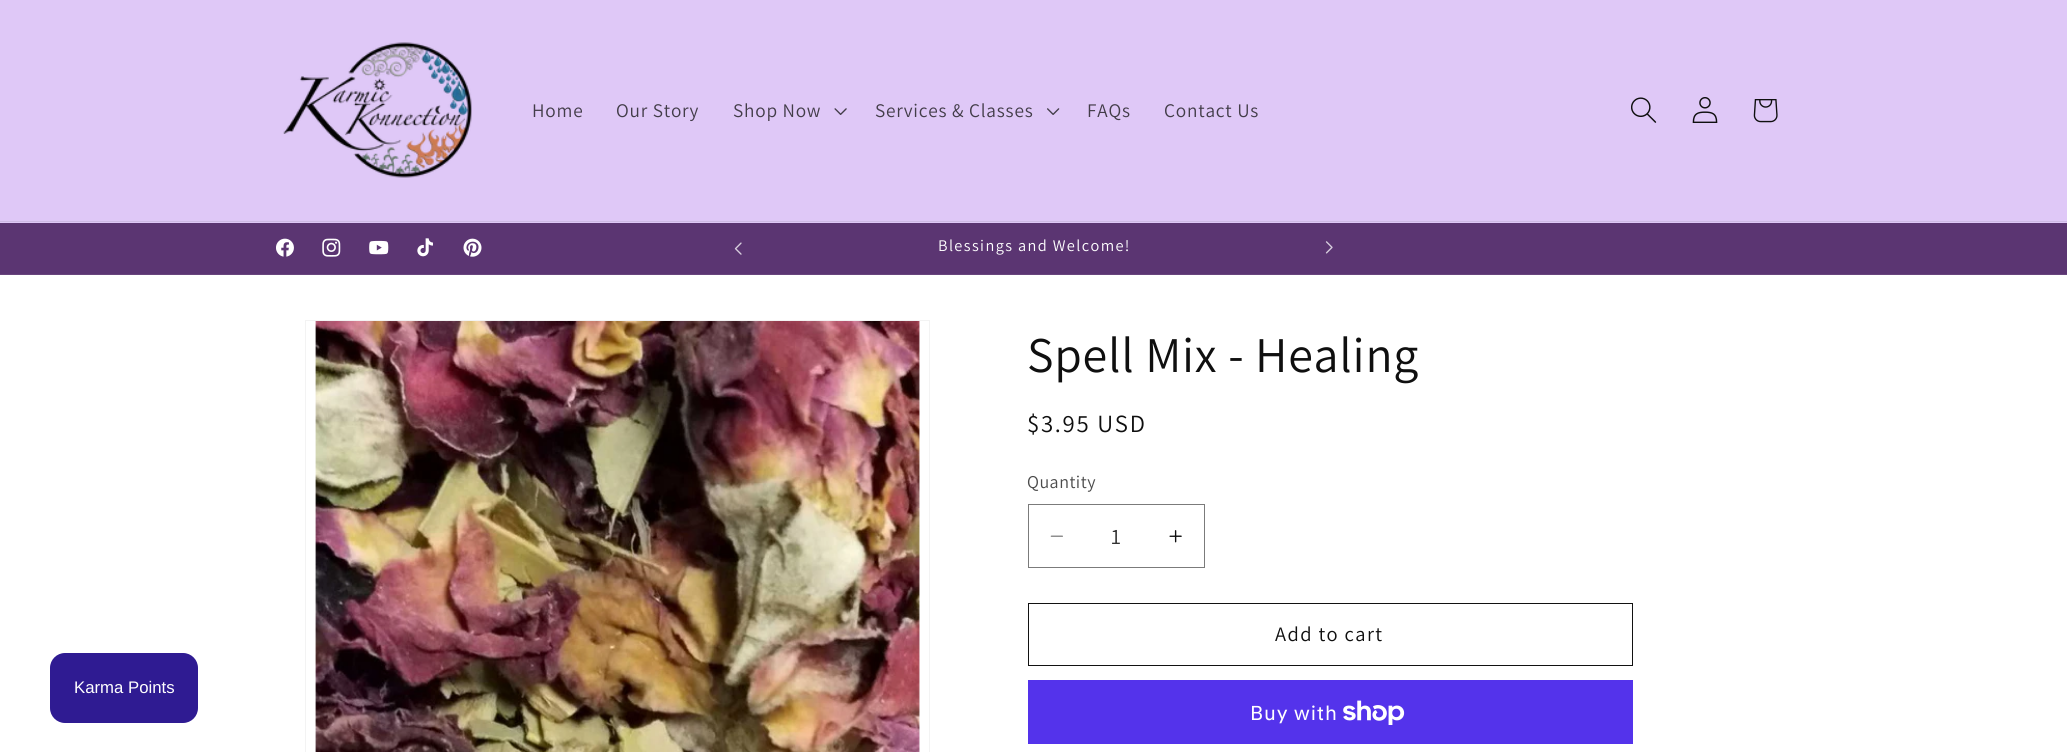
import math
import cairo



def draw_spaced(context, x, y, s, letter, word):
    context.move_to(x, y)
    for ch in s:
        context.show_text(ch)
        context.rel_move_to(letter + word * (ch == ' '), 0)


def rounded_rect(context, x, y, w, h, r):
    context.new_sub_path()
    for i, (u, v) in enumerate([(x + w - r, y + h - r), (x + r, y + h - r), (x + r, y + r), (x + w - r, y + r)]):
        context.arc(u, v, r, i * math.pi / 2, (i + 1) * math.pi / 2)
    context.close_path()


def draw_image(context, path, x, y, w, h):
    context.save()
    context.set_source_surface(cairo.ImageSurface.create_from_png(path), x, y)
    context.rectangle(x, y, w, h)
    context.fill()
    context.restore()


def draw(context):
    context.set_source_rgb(1, 1, 1)
    context.paint()
    context.set_source_rgb(223 / 255, 200 / 255, 247 / 255)
    context.rectangle(0, 0, 2067, 223)
    context.fill()
    context.set_source_rgb(206 / 255, 185 / 255, 228 / 255)
    context.rectangle(0, 221, 2067, 1)
    context.fill()
    draw_image(context, "images/1.png", 283, 42, 189, 136)
    draw_image(context, "images/2.png", 834, 108, 13, 7)
    draw_image(context, "images/3.png", 1047, 108, 13, 7)
    draw_image(context, "images/4.png", 1631, 97, 26, 26)
    draw_image(context, "images/5.png", 1692, 97, 26, 26)
    draw_image(context, "images/6.png", 1753, 99, 25, 24)
    context.set_source_rgb(91 / 255, 53 / 255, 114 / 255)
    context.rectangle(0, 223, 2067, 51)
    context.fill()
    context.set_source_rgb(104 / 255, 69 / 255, 125 / 255)
    context.rectangle(0, 274, 2067, 1)
    context.fill()
    draw_image(context, "images/7.png", 276, 238, 18, 19)
    draw_image(context, "images/8.png", 322, 238, 19, 19)
    draw_image(context, "images/9.png", 369, 240, 20, 15)
    draw_image(context, "images/10.png", 417, 238, 16, 19)
    draw_image(context, "images/11.png", 463, 238, 19, 19)
    draw_image(context, "images/12.png", 734, 242, 8, 13)
    draw_image(context, "images/13.png", 1325, 241, 8, 13)
    context.set_source_rgb(47 / 255, 27 / 255, 146 / 255)
    rounded_rect(context, 50, 653, 148, 70, 15)
    context.fill()
    context.rectangle(305.5, 320.5, 624, 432)
    context.set_source_rgb(243 / 255, 243 / 255, 243 / 255)
    context.set_line_width(1)
    context.stroke()
    draw_image(context, "images/14.png", 315, 321, 605, 431)
    draw_image(context, "images/15.png", 1050, 535, 13, 2)
    draw_image(context, "images/16.png", 1169, 530, 13, 13)
    context.rectangle(1028.5, 504.5, 176, 63)
    context.set_source_rgb(123 / 255, 123 / 255, 123 / 255)
    context.stroke()
    context.rectangle(1028.5, 603.5, 604, 62)
    context.set_source_rgb(18 / 255, 18 / 255, 18 / 255)
    context.stroke()
    context.set_source_rgb(84 / 255, 51 / 255, 235 / 255)
    context.rectangle(1028, 680, 605, 64)
    context.fill()
    draw_image(context, "images/17.png", 1343, 700, 62, 25)
    context.select_font_face("Assistant")
    context.set_font_size(19.25)
    context.set_source_rgb(67 / 255, 61 / 255, 73 / 255)
    draw_spaced(context, 532, 117, "Home", 0.8, 0)
    draw_spaced(context, 616, 117, "Our Story", 0.8, 0)
    draw_spaced(context, 733, 117, "Shop Now", 0.8, 0)
    draw_spaced(context, 875, 117, "Services & Classes", 0.8, 0)
    draw_spaced(context, 1087, 117, "FAQs", 0.8, 0)
    draw_spaced(context, 1164, 117, "Contact Us", 0.8, 0)
    context.set_font_size(16.25)
    context.set_source_rgb(1, 1, 1)
    draw_spaced(context, 938, 251, "Blessings and Welcome!", 1.4, 0)
    context.select_font_face("Liberation Sans")
    context.set_font_size(16.75)
    context.move_to(74, 693)
    context.show_text("Karma Points")
    context.select_font_face("Assistant")
    context.set_font_size(50)
    context.set_source_rgb(15 / 255, 15 / 255, 15 / 255)
    draw_spaced(context, 1027, 372, "Spell Mix - Healing", 0.75, 0)
    context.set_font_size(24.75)
    draw_spaced(context, 1027, 432, "$3.95 USD", 1.75, 0)
    context.set_font_size(18)
    context.set_source_rgb(75 / 255, 75 / 255, 75 / 255)
    draw_spaced(context, 1027, 488, "Quantity", 0.5, 0)
    context.set_font_size(22)
    context.set_source_rgb(51 / 255, 51 / 255, 51 / 255)
    context.move_to(1111, 544)
    context.show_text("1")
    context.set_font_size(20.5)
    context.set_source_rgb(15 / 255, 15 / 255, 15 / 255)
    draw_spaced(context, 1275, 641, "Add to cart", 1.4, 0)
    context.select_font_face("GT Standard")
    context.set_font_size(20)
    context.set_source_rgb(1, 1, 1)
    draw_spaced(context, 1250, 720, "Buy with", 0.8, 0)


surface = cairo.ImageSurface(cairo.Format.RGB24, 2067, 752)
context = cairo.Context(surface)
options = cairo.FontOptions()
options.set_hint_metrics(cairo.HintMetrics.OFF)
options.set_hint_style(cairo.HintStyle.NONE)
context.set_font_options(options)
context.set_miter_limit(4)
draw(context)
surface.write_to_png("out.png")
